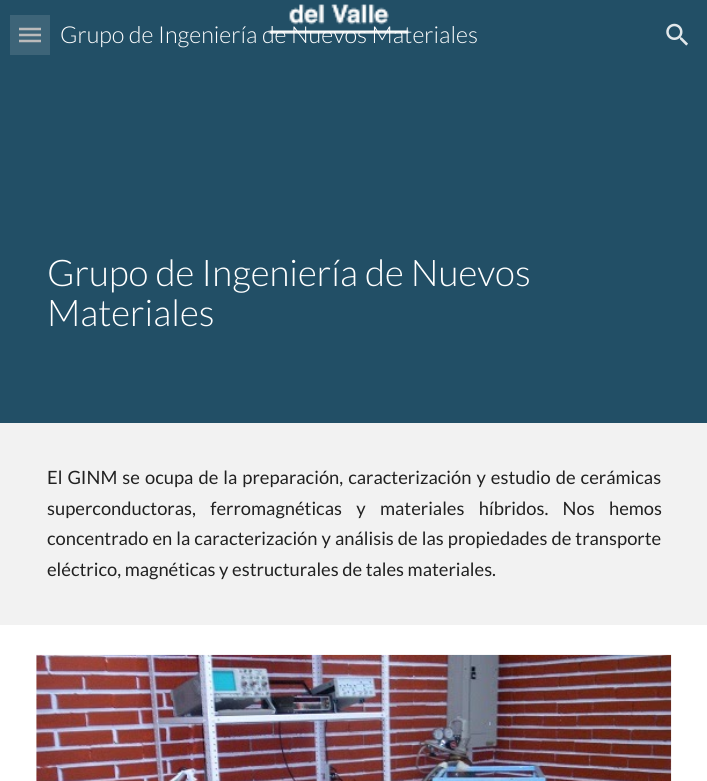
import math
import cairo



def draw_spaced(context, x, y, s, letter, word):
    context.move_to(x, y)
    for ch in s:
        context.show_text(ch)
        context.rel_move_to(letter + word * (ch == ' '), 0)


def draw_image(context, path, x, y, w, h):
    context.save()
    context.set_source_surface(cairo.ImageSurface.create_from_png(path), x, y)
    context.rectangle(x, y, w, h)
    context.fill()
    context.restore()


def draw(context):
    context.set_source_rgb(1, 1, 1)
    context.paint()
    context.set_source_rgb(34 / 255, 79 / 255, 102 / 255)
    context.rectangle(0, 0, 707, 423)
    context.fill()
    context.set_source_rgb(61 / 255, 100 / 255, 120 / 255)
    context.rectangle(10, 15, 40, 40)
    context.fill()
    context.new_path()
    context.move_to(19, 29)
    context.line_to(41, 29)
    context.move_to(19, 35)
    context.line_to(41, 35)
    context.move_to(19, 41)
    context.line_to(41, 41)
    context.set_source_rgb(187 / 255, 187 / 255, 187 / 255)
    context.set_line_width(2.5)
    context.stroke()
    draw_image(context, "images/1.png", 666, 23, 22, 23)
    draw_image(context, "images/2.png", 268, 4, 141, 30)
    context.set_source_rgb(242 / 255, 242 / 255, 242 / 255)
    context.rectangle(0, 423, 707, 202)
    context.fill()
    draw_image(context, "images/3.png", 36, 654, 636, 127)
    context.select_font_face("Lato Light")
    context.set_font_size(23.3)
    context.set_source_rgb(1, 1, 1)
    context.move_to(60, 43)
    context.show_text("Grupo de Ingeniería de Nuevos Materiales")
    context.set_font_size(36.7)
    context.move_to(47, 286)
    context.show_text("Grupo de Ingeniería de Nuevos")
    context.move_to(47, 326)
    context.show_text("Materiales")
    context.select_font_face("Lato")
    context.set_font_size(18.35)
    context.set_source_rgb(33 / 255, 33 / 255, 33 / 255)
    draw_spaced(context, 47, 484, "El GINM se ocupa de la preparación, caracterización y estudio de cerámicas", 0, 1.5)
    draw_spaced(context, 47, 515, "superconductoras, ferromagnéticas y materiales híbridos. Nos hemos", 0, 10.75)
    draw_spaced(context, 47, 545, "concentrado en la caracterización y análisis de las propiedades de transporte", 0, 0.5)
    context.move_to(47, 576)
    context.show_text("eléctrico, magnéticas y estructurales de tales materiales.")


surface = cairo.ImageSurface(cairo.Format.RGB24, 707, 781)
context = cairo.Context(surface)
options = cairo.FontOptions()
options.set_hint_metrics(cairo.HintMetrics.OFF)
options.set_hint_style(cairo.HintStyle.NONE)
context.set_font_options(options)
context.set_miter_limit(4)
draw(context)
surface.write_to_png("out.png")
